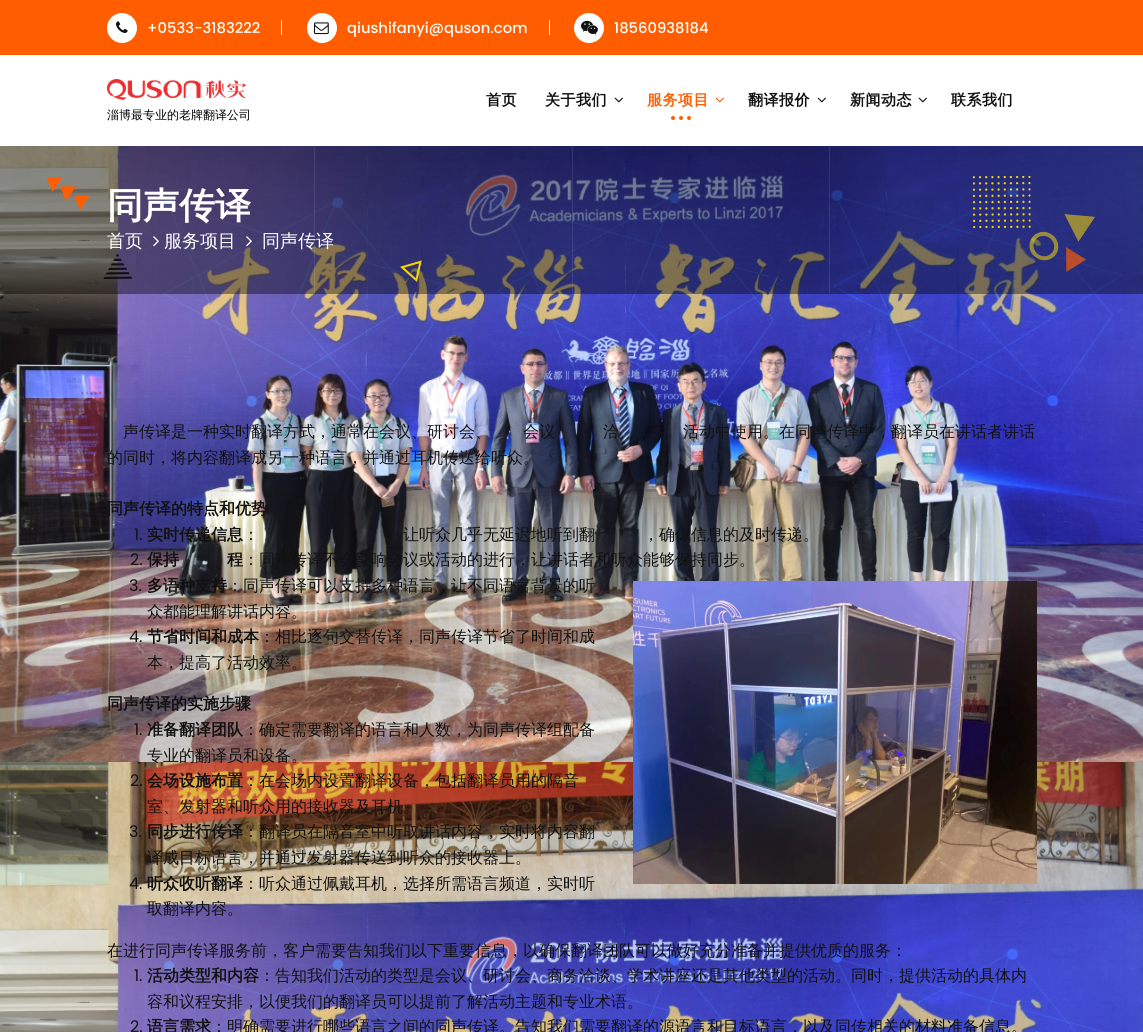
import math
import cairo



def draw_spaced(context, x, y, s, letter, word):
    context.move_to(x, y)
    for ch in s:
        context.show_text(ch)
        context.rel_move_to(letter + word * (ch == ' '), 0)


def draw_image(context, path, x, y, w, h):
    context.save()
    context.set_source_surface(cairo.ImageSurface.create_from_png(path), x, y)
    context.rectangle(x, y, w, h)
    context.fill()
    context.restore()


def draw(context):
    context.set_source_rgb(1, 1, 1)
    context.paint()
    draw_image(context, "images/1.png", 0, 146, 1143, 886)
    context.set_source_rgb(1, 93 / 255, 0)
    context.rectangle(0, 0, 1143, 55)
    context.fill()
    context.set_source_rgb(1, 1, 1)
    context.arc(122, 28, 15, 0, 2 * math.pi)
    context.fill()
    draw_image(context, "images/2.png", 116, 21, 12, 12)
    context.rectangle(281, 20, 1, 15)
    context.fill()
    context.arc(322, 28, 15, 0, 2 * math.pi)
    context.fill()
    draw_image(context, "images/3.png", 314, 22, 15, 13)
    context.rectangle(549, 20, 1, 15)
    context.fill()
    context.arc(589, 28, 15, 0, 2 * math.pi)
    context.fill()
    draw_image(context, "images/4.png", 581, 20, 17, 15)
    draw_image(context, "images/5.png", 614, 97, 9, 6)
    draw_image(context, "images/6.png", 715, 97, 9, 6)
    context.new_path()
    context.move_to(673, 118)
    context.line_to(693, 118)
    context.set_source_rgb(1, 93 / 255, 0)
    context.set_line_width(4)
    context.set_line_cap(cairo.LineCap.ROUND)
    context.set_dash([0, 8])
    context.stroke()
    draw_image(context, "images/5.png", 817, 97, 9, 6)
    draw_image(context, "images/5.png", 918, 97, 9, 6)
    draw_image(context, "images/7.png", 107, 79, 139, 21)
    context.set_source_rgba(0, 0, 0, 0.4)
    context.rectangle(0, 146, 1143, 148)
    context.fill()
    draw_image(context, "images/8.png", 46, 177, 44, 33)
    draw_image(context, "images/9.png", 153, 236, 6, 11)
    draw_image(context, "images/10.png", 246, 236, 6, 11)
    context.set_source_rgba(1, 1, 1, 0.1)
    context.rectangle(314, 146, 1, 148)
    context.fill()
    context.rectangle(572, 146, 1, 148)
    context.fill()
    context.rectangle(829, 146, 1, 148)
    context.fill()
    draw_image(context, "images/11.png", 972, 176, 59, 52)
    draw_image(context, "images/15.png", 1066, 247, 20, 25)
    draw_image(context, "images/12.png", 1029, 214, 66, 47)
    draw_image(context, "images/13.png", 103, 253, 30, 26)
    draw_image(context, "images/14.png", 400, 260, 22, 22)
    draw_image(context, "images/16.png", 633, 581, 404, 303)
    context.select_font_face("Poppins Medium")
    context.set_font_size(14.75)
    context.set_source_rgb(1, 1, 1)
    context.move_to(147, 33)
    context.show_text("+0533-3183222")
    context.move_to(347, 33)
    context.show_text("qiushifanyi@quson.com")
    context.move_to(614, 33)
    context.show_text("18560938184")
    context.select_font_face("WenQuanYi Zen Hei", cairo.FontSlant.NORMAL, cairo.FontWeight.BOLD)
    context.set_font_size(15)
    context.set_source_rgb(17 / 255, 17 / 255, 17 / 255)
    draw_spaced(context, 486, 105, "首页", 0.5, 0)
    draw_spaced(context, 545, 105, "关于我们", 0.5, 0)
    context.set_source_rgb(1, 93 / 255, 0)
    draw_spaced(context, 647, 105, "服务项目", 0.5, 0)
    context.set_source_rgb(17 / 255, 17 / 255, 17 / 255)
    draw_spaced(context, 748, 105, "翻译报价", 0.5, 0)
    draw_spaced(context, 850, 105, "新闻动态", 0.5, 0)
    draw_spaced(context, 951, 105, "联系我们", 0.5, 0)
    context.select_font_face("WenQuanYi Zen Hei Medium")
    context.set_font_size(12)
    context.set_source_rgb(0, 0, 0)
    context.move_to(107, 119)
    context.show_text("淄博最专业的老牌翻译公司")
    context.select_font_face("WenQuanYi Zen Hei", cairo.FontSlant.NORMAL, cairo.FontWeight.BOLD)
    context.set_font_size(36)
    context.set_source_rgb(1, 1, 1)
    context.move_to(107, 218)
    context.show_text("同声传译")
    context.select_font_face("WenQuanYi Zen Hei Medium")
    context.set_font_size(18)
    context.move_to(107, 247)
    context.show_text("首页")
    context.move_to(164, 247)
    context.show_text("服务项目")
    context.move_to(262, 247)
    context.show_text("同声传译")
    context.set_font_size(16)
    context.set_source_rgb(17 / 255, 17 / 255, 17 / 255)
    context.move_to(123, 437)
    context.show_text("声传译是一种实时翻译方式，通常在会议、研讨会、")
    context.move_to(523, 437)
    context.show_text("会议")
    context.move_to(603, 437)
    context.show_text("洽")
    context.move_to(683, 437)
    context.show_text("活动中使用。在同声传译中，翻译员在讲话者讲话")
    context.move_to(107, 463)
    context.show_text("的同时，将内容翻译成另一种语言，并通过耳机传送给听众。")
    context.select_font_face("WenQuanYi Zen Hei", cairo.FontSlant.NORMAL, cairo.FontWeight.BOLD)
    context.move_to(107, 514)
    context.show_text("同声传译的特点和优势")
    context.select_font_face("Poppins")
    context.move_to(134, 540)
    context.show_text("1.")
    context.select_font_face("WenQuanYi Zen Hei", cairo.FontSlant.NORMAL, cairo.FontWeight.BOLD)
    context.move_to(147, 540)
    context.show_text("实时传递信息")
    context.select_font_face("WenQuanYi Zen Hei Medium")
    context.move_to(243, 540)
    context.show_text("：")
    context.move_to(403, 540)
    context.show_text("让听众几乎无延迟地听到翻")
    context.move_to(643, 540)
    context.show_text("，确保信息的及时传递。")
    context.select_font_face("Poppins")
    context.move_to(130, 565)
    context.show_text("2.")
    context.select_font_face("WenQuanYi Zen Hei", cairo.FontSlant.NORMAL, cairo.FontWeight.BOLD)
    context.move_to(147, 565)
    context.show_text("保持")
    context.move_to(227, 565)
    context.show_text("程")
    context.select_font_face("WenQuanYi Zen Hei Medium")
    context.move_to(243, 565)
    context.show_text("：同声传译不会影响会议或活动的进行，让讲话者和听众能够保持同步。")
    context.select_font_face("Poppins")
    context.move_to(129, 591)
    context.show_text("3.")
    context.select_font_face("WenQuanYi Zen Hei", cairo.FontSlant.NORMAL, cairo.FontWeight.BOLD)
    context.move_to(147, 591)
    context.show_text("多语种支持")
    context.select_font_face("WenQuanYi Zen Hei Medium")
    context.move_to(227, 591)
    context.show_text("：同声传译可以支持多种语言，让不同语言背景的听")
    context.move_to(147, 617)
    context.show_text("众都能理解讲话内容。")
    context.select_font_face("Poppins")
    context.move_to(129, 642)
    context.show_text("4.")
    context.select_font_face("WenQuanYi Zen Hei", cairo.FontSlant.NORMAL, cairo.FontWeight.BOLD)
    context.move_to(147, 642)
    context.show_text("节省时间和成本")
    context.select_font_face("WenQuanYi Zen Hei Medium")
    context.move_to(259, 642)
    context.show_text("：相比逐句交替传译，同声传译节省了时间和成")
    context.move_to(147, 668)
    context.show_text("本，提高了活动效率。")
    context.select_font_face("WenQuanYi Zen Hei", cairo.FontSlant.NORMAL, cairo.FontWeight.BOLD)
    context.move_to(107, 709)
    context.show_text("同声传译的实施步骤")
    context.select_font_face("Poppins")
    context.move_to(134, 735)
    context.show_text("1.")
    context.select_font_face("WenQuanYi Zen Hei", cairo.FontSlant.NORMAL, cairo.FontWeight.BOLD)
    context.move_to(147, 735)
    context.show_text("准备翻译团队")
    context.select_font_face("WenQuanYi Zen Hei Medium")
    context.move_to(243, 735)
    context.show_text("：确定需要翻译的语言和人数，为同声传译组配备")
    context.move_to(147, 761)
    context.show_text("专业的翻译员和设备。")
    context.select_font_face("Poppins")
    context.move_to(130, 786)
    context.show_text("2.")
    context.select_font_face("WenQuanYi Zen Hei", cairo.FontSlant.NORMAL, cairo.FontWeight.BOLD)
    context.move_to(147, 786)
    context.show_text("会场设施布置")
    context.select_font_face("WenQuanYi Zen Hei Medium")
    context.move_to(243, 786)
    context.show_text("：在会场内设置翻译设备，包括翻译员用的隔音")
    context.move_to(147, 812)
    context.show_text("室、发射器和听众用的接收器及耳机。")
    context.select_font_face("Poppins")
    context.move_to(129, 837)
    context.show_text("3.")
    context.select_font_face("WenQuanYi Zen Hei", cairo.FontSlant.NORMAL, cairo.FontWeight.BOLD)
    context.move_to(147, 837)
    context.show_text("同步进行传译")
    context.select_font_face("WenQuanYi Zen Hei Medium")
    context.move_to(243, 837)
    context.show_text("：翻译员在隔音室中听取讲话内容，实时将内容翻")
    context.move_to(147, 863)
    context.show_text("译成目标语言，并通过发射器传送到听众的接收器上。")
    context.select_font_face("Poppins")
    context.move_to(129, 889)
    context.show_text("4.")
    context.select_font_face("WenQuanYi Zen Hei", cairo.FontSlant.NORMAL, cairo.FontWeight.BOLD)
    context.move_to(147, 889)
    context.show_text("听众收听翻译")
    context.select_font_face("WenQuanYi Zen Hei Medium")
    context.move_to(243, 889)
    context.show_text("：听众通过佩戴耳机，选择所需语言频道，实时听")
    context.move_to(147, 914)
    context.show_text("取翻译内容。")
    context.move_to(107, 956)
    context.show_text("在进行同声传译服务前，客户需要告知我们以下重要信息，以确保翻译团队可以做好充分准备并提供优质的服务：")
    context.select_font_face("Poppins")
    context.move_to(134, 981)
    context.show_text("1.")
    context.select_font_face("WenQuanYi Zen Hei", cairo.FontSlant.NORMAL, cairo.FontWeight.BOLD)
    context.move_to(147, 981)
    context.show_text("活动类型和内容")
    context.select_font_face("WenQuanYi Zen Hei Medium")
    context.move_to(259, 981)
    context.show_text("：告知我们活动的类型是会议、研讨会、商务洽谈、学术讲座还是其他类型的活动。同时，提供活动的具体内")
    context.move_to(147, 1007)
    context.show_text("容和议程安排，以便我们的翻译员可以提前了解活动主题和专业术语。")
    context.select_font_face("Poppins")
    context.move_to(130, 1032)
    context.show_text("2.")
    context.select_font_face("WenQuanYi Zen Hei", cairo.FontSlant.NORMAL, cairo.FontWeight.BOLD)
    context.move_to(147, 1032)
    context.show_text("语言需求")
    context.select_font_face("WenQuanYi Zen Hei Medium")
    context.move_to(211, 1032)
    context.show_text("：明确需要进行哪些语言之间的同声传译。告知我们需要翻译的源语言和目标语言，以及同传相关的材料准备信息。")


surface = cairo.ImageSurface(cairo.Format.RGB24, 1143, 1032)
context = cairo.Context(surface)
options = cairo.FontOptions()
options.set_hint_metrics(cairo.HintMetrics.OFF)
options.set_hint_style(cairo.HintStyle.NONE)
context.set_font_options(options)
context.set_miter_limit(4)
draw(context)
surface.write_to_png("out.png")
